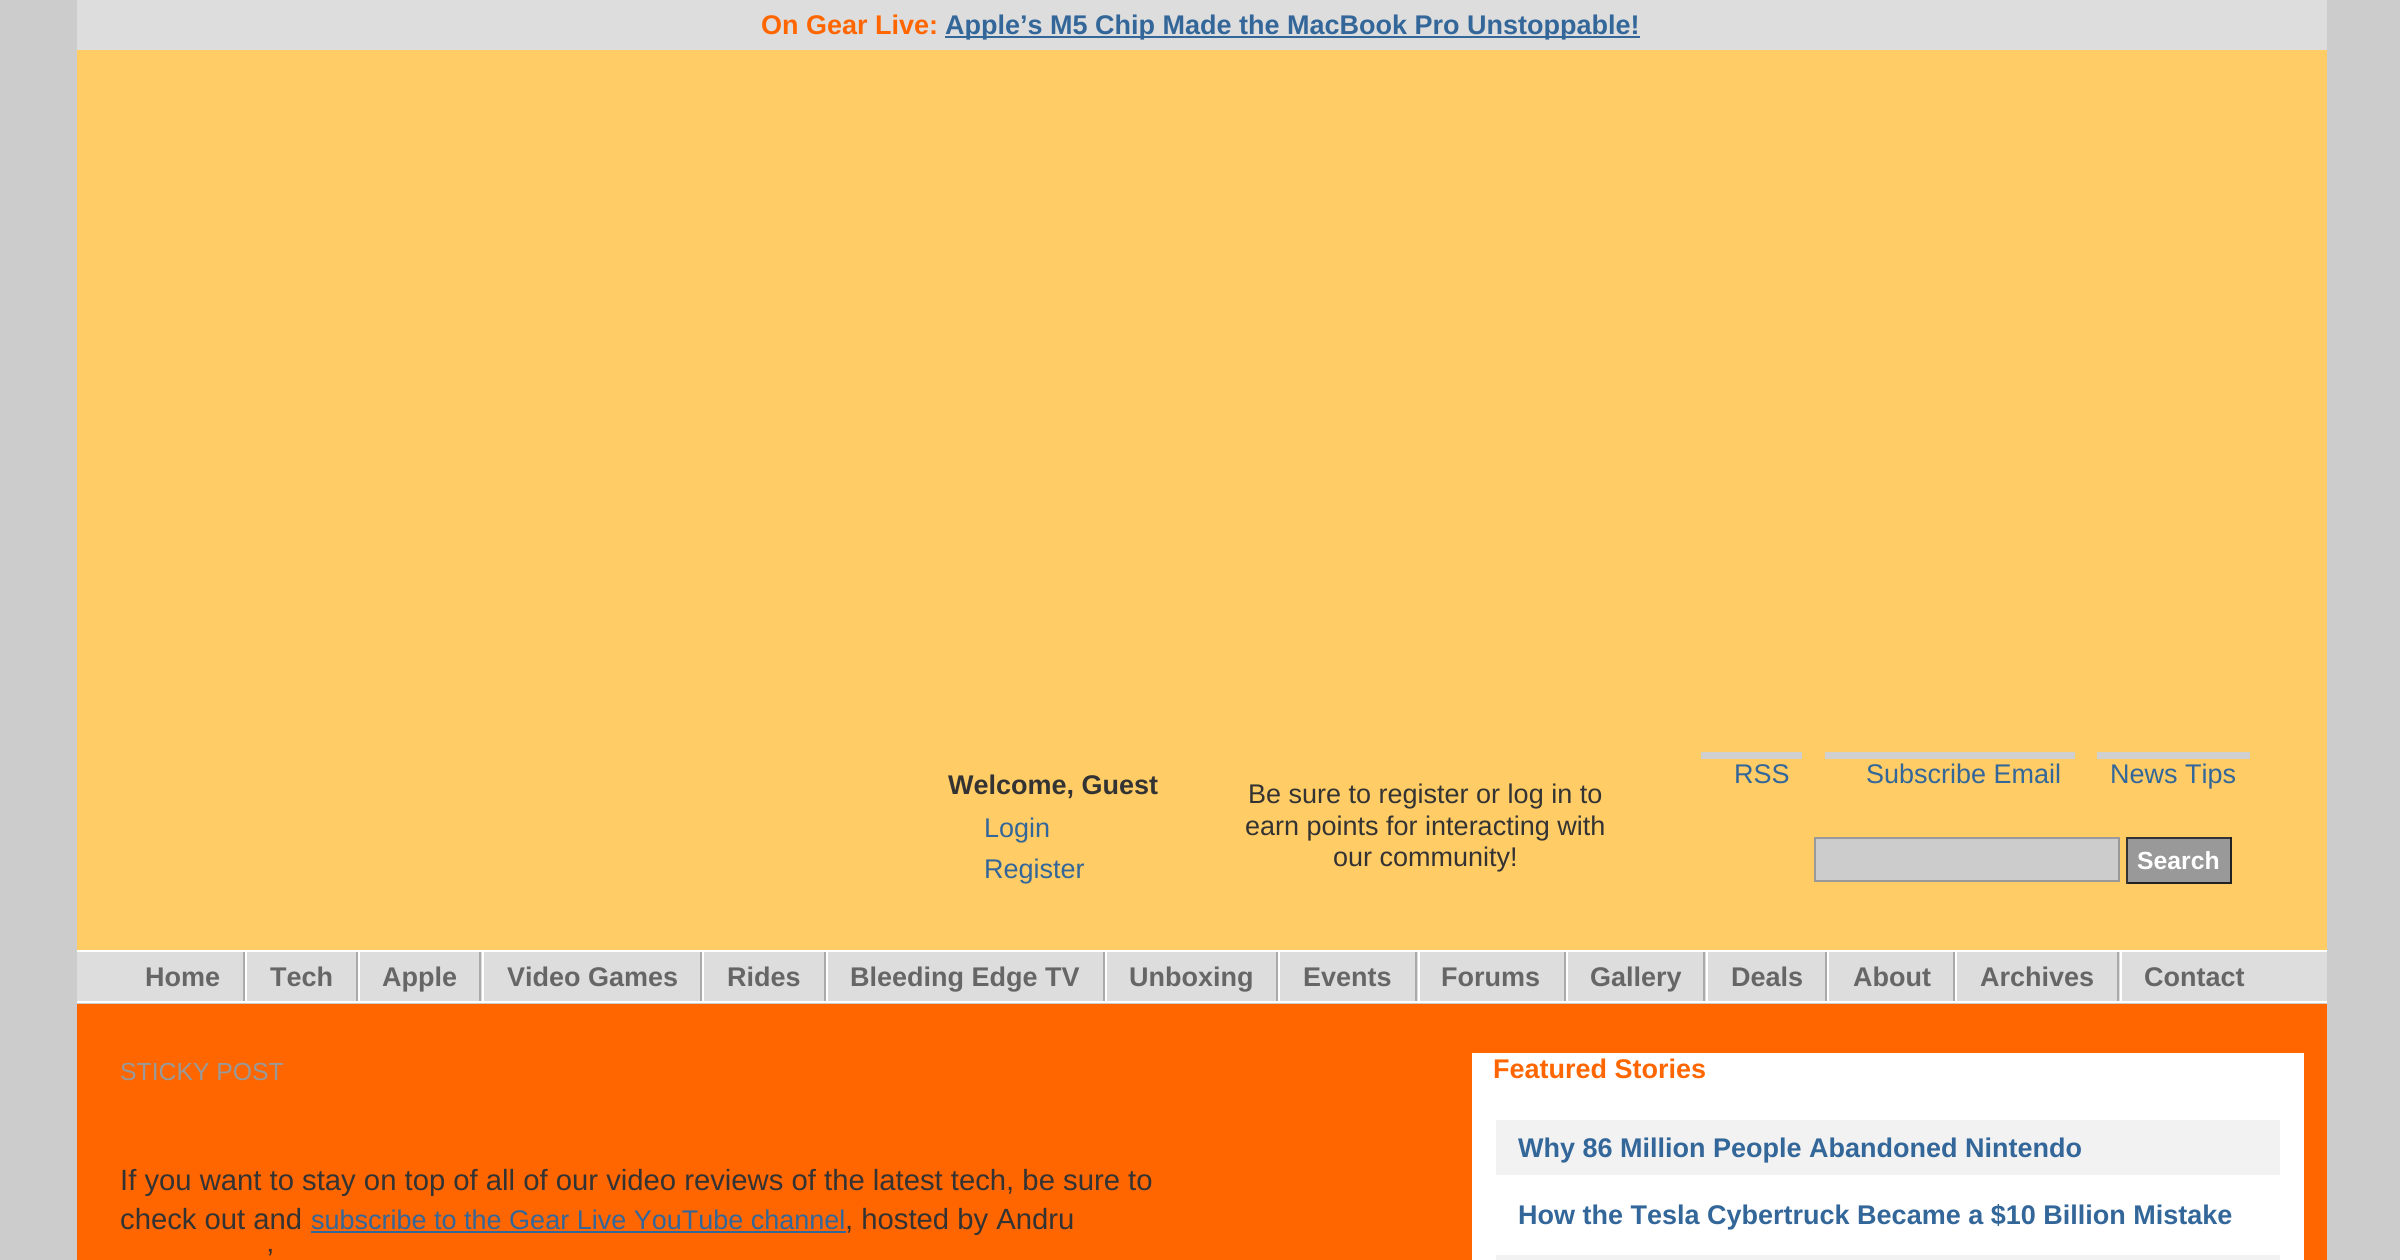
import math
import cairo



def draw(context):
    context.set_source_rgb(204 / 255, 204 / 255, 204 / 255)
    context.paint()
    context.set_source_rgb(221 / 255, 221 / 255, 221 / 255)
    context.rectangle(77, 0, 2250, 50)
    context.fill()
    context.set_source_rgb(51 / 255, 102 / 255, 153 / 255)
    context.rectangle(945, 36, 695, 2)
    context.fill()
    context.set_source_rgb(1, 204 / 255, 102 / 255)
    context.rectangle(77, 50, 2250, 900)
    context.fill()
    context.set_source_rgb(207 / 255, 207 / 255, 207 / 255)
    context.rectangle(1701, 752, 101, 7)
    context.fill()
    context.rectangle(1825, 752, 250, 7)
    context.fill()
    context.rectangle(2097, 752, 153, 7)
    context.fill()
    context.set_source_rgb(204 / 255, 204 / 255, 204 / 255)
    context.rectangle(1815, 838, 304, 43)
    context.fill_preserve()
    context.set_source_rgb(153 / 255, 153 / 255, 153 / 255)
    context.stroke()
    context.rectangle(2128, 839, 102, 43)
    context.fill()
    context.set_source_rgb(51 / 255, 51 / 255, 51 / 255)
    context.rectangle(2126, 837, 106, 2)
    context.fill()
    context.set_source_rgb(34 / 255, 34 / 255, 34 / 255)
    context.rectangle(2230, 837, 2, 47)
    context.fill()
    context.rectangle(2126, 882, 106, 2)
    context.fill()
    context.set_source_rgb(51 / 255, 51 / 255, 51 / 255)
    context.rectangle(2126, 837, 2, 47)
    context.fill()
    context.set_source_rgb(221 / 255, 221 / 255, 221 / 255)
    context.rectangle(77, 952, 2250, 49)
    context.fill()
    context.set_source_rgb(1, 1, 1)
    context.rectangle(77, 950, 2250, 2)
    context.fill()
    context.rectangle(77, 1001, 2250, 2)
    context.fill()
    context.set_source_rgb(170 / 255, 170 / 255, 170 / 255)
    context.rectangle(243, 952, 2, 49)
    context.fill()
    context.rectangle(356, 952, 2, 49)
    context.fill()
    context.set_source_rgb(1, 1, 1)
    context.rectangle(245, 952, 2, 49)
    context.fill()
    context.set_source_rgb(170 / 255, 170 / 255, 170 / 255)
    context.rectangle(479, 952, 2, 49)
    context.fill()
    context.set_source_rgb(1, 1, 1)
    context.rectangle(358, 952, 2, 49)
    context.fill()
    context.set_source_rgb(170 / 255, 170 / 255, 170 / 255)
    context.rectangle(700, 952, 2, 49)
    context.fill()
    context.set_source_rgb(1, 1, 1)
    context.rectangle(482, 952, 2, 49)
    context.fill()
    context.set_source_rgb(170 / 255, 170 / 255, 170 / 255)
    context.rectangle(824, 952, 2, 49)
    context.fill()
    context.set_source_rgb(1, 1, 1)
    context.rectangle(702, 952, 2, 49)
    context.fill()
    context.set_source_rgb(170 / 255, 170 / 255, 170 / 255)
    context.rectangle(1103, 952, 2, 49)
    context.fill()
    context.set_source_rgb(1, 1, 1)
    context.rectangle(826, 952, 2, 49)
    context.fill()
    context.set_source_rgb(170 / 255, 170 / 255, 170 / 255)
    context.rectangle(1276, 952, 2, 49)
    context.fill()
    context.set_source_rgb(1, 1, 1)
    context.rectangle(1105, 952, 2, 49)
    context.fill()
    context.set_source_rgb(170 / 255, 170 / 255, 170 / 255)
    context.rectangle(1415, 952, 2, 49)
    context.fill()
    context.set_source_rgb(1, 1, 1)
    context.rectangle(1278, 952, 2, 49)
    context.fill()
    context.set_source_rgb(170 / 255, 170 / 255, 170 / 255)
    context.rectangle(1564, 952, 2, 49)
    context.fill()
    context.set_source_rgb(1, 1, 1)
    context.rectangle(1418, 952, 2, 49)
    context.fill()
    context.set_source_rgb(170 / 255, 170 / 255, 170 / 255)
    context.rectangle(1703, 952, 2, 49)
    context.fill()
    context.set_source_rgb(1, 1, 1)
    context.rectangle(1566, 952, 2, 49)
    context.fill()
    context.set_source_rgb(170 / 255, 170 / 255, 170 / 255)
    context.rectangle(1825, 952, 2, 49)
    context.fill()
    context.set_source_rgb(1, 1, 1)
    context.rectangle(1706, 952, 2, 49)
    context.fill()
    context.set_source_rgb(170 / 255, 170 / 255, 170 / 255)
    context.rectangle(1953, 952, 2, 49)
    context.fill()
    context.set_source_rgb(1, 1, 1)
    context.rectangle(1827, 952, 2, 49)
    context.fill()
    context.set_source_rgb(170 / 255, 170 / 255, 170 / 255)
    context.rectangle(2117, 952, 2, 49)
    context.fill()
    context.set_source_rgb(1, 1, 1)
    context.rectangle(1955, 952, 2, 49)
    context.fill()
    context.rectangle(2120, 952, 2, 49)
    context.fill()
    context.set_source_rgb(1, 102 / 255, 0)
    context.rectangle(77, 1004, 2250, 256)
    context.fill()
    context.set_source_rgb(51 / 255, 102 / 255, 153 / 255)
    context.rectangle(311, 1231, 535, 2)
    context.fill()
    context.set_source_rgb(1, 1, 1)
    context.rectangle(1472, 1053, 832, 207)
    context.fill()
    context.set_source_rgb(242 / 255, 242 / 255, 242 / 255)
    context.rectangle(1496, 1120, 784, 55)
    context.fill()
    context.rectangle(1495, 1254, 786, 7)
    context.fill_preserve()
    context.set_source_rgb(1, 1, 1)
    context.stroke()
    context.select_font_face("Liberation Sans", cairo.FontSlant.NORMAL, cairo.FontWeight.BOLD)
    context.set_font_size(27)
    context.set_source_rgb(1, 102 / 255, 0)
    context.move_to(761, 34)
    context.show_text("On Gear Live:")
    context.set_source_rgb(51 / 255, 102 / 255, 153 / 255)
    context.move_to(945, 34)
    context.show_text("Apple’s M5 Chip Made the MacBook Pro Unstoppable!")
    context.set_source_rgb(51 / 255, 51 / 255, 51 / 255)
    context.move_to(948, 794)
    context.show_text("Welcome, Guest")
    context.select_font_face("Liberation Sans")
    context.move_to(1248, 803)
    context.show_text("Be sure to register or log in to")
    context.move_to(1245, 835)
    context.show_text("earn points for interacting with")
    context.move_to(1333, 866)
    context.show_text("our community!")
    context.set_source_rgb(51 / 255, 102 / 255, 153 / 255)
    context.move_to(984, 837)
    context.show_text("Login")
    context.move_to(984, 878)
    context.show_text("Register")
    context.move_to(1734, 783)
    context.show_text("RSS")
    context.move_to(1866, 783)
    context.show_text("Subscribe Email")
    context.move_to(2110, 783)
    context.show_text("News Tips")
    context.select_font_face("Liberation Sans", cairo.FontSlant.NORMAL, cairo.FontWeight.BOLD)
    context.set_font_size(24.75)
    context.set_source_rgb(1, 1, 1)
    context.move_to(2137, 869)
    context.show_text("Search")
    context.set_font_size(27)
    context.set_source_rgb(102 / 255, 102 / 255, 102 / 255)
    context.move_to(145, 986)
    context.show_text("Home")
    context.move_to(270, 986)
    context.show_text("Tech")
    context.move_to(382, 986)
    context.show_text("Apple")
    context.move_to(507, 986)
    context.show_text("Video Games")
    context.move_to(727, 986)
    context.show_text("Rides")
    context.move_to(850, 986)
    context.show_text("Bleeding Edge TV")
    context.move_to(1129, 986)
    context.show_text("Unboxing")
    context.move_to(1303, 986)
    context.show_text("Events")
    context.move_to(1441, 986)
    context.show_text("Forums")
    context.move_to(1590, 986)
    context.show_text("Gallery")
    context.move_to(1731, 986)
    context.show_text("Deals")
    context.move_to(1853, 986)
    context.show_text("About")
    context.move_to(1980, 986)
    context.show_text("Archives")
    context.move_to(2144, 986)
    context.show_text("Contact")
    context.select_font_face("Liberation Sans")
    context.set_font_size(24.75)
    context.set_source_rgb(153 / 255, 153 / 255, 153 / 255)
    context.move_to(120, 1080)
    context.show_text("STICKY POST")
    context.set_font_size(29.25)
    context.set_source_rgb(51 / 255, 51 / 255, 51 / 255)
    context.move_to(120, 1190)
    context.show_text("If you want to stay on top of all of our video reviews of the latest tech, be sure to")
    context.move_to(120, 1229)
    context.show_text("check out and")
    context.set_font_size(27)
    context.set_source_rgb(51 / 255, 102 / 255, 153 / 255)
    context.move_to(311, 1229)
    context.show_text("subscribe to the Gear Live YouTube channel")
    context.set_font_size(29.25)
    context.set_source_rgb(51 / 255, 51 / 255, 51 / 255)
    context.move_to(845, 1229)
    context.show_text(", hosted by Andru")
    context.move_to(267, 1269)
    context.show_text("’")
    context.select_font_face("Liberation Sans", cairo.FontSlant.NORMAL, cairo.FontWeight.BOLD)
    context.set_font_size(27)
    context.set_source_rgb(1, 102 / 255, 0)
    context.move_to(1493, 1078)
    context.show_text("Featured Stories")
    context.set_source_rgb(51 / 255, 102 / 255, 153 / 255)
    context.move_to(1518, 1157)
    context.show_text("Why 86 Million People Abandoned Nintendo")
    context.move_to(1518, 1224)
    context.show_text("How the Tesla Cybertruck Became a $10 Billion Mistake")


surface = cairo.ImageSurface(cairo.Format.RGB24, 2400, 1260)
context = cairo.Context(surface)
options = cairo.FontOptions()
options.set_hint_metrics(cairo.HintMetrics.OFF)
options.set_hint_style(cairo.HintStyle.NONE)
context.set_font_options(options)
context.set_miter_limit(4)
draw(context)
surface.write_to_png("out.png")
